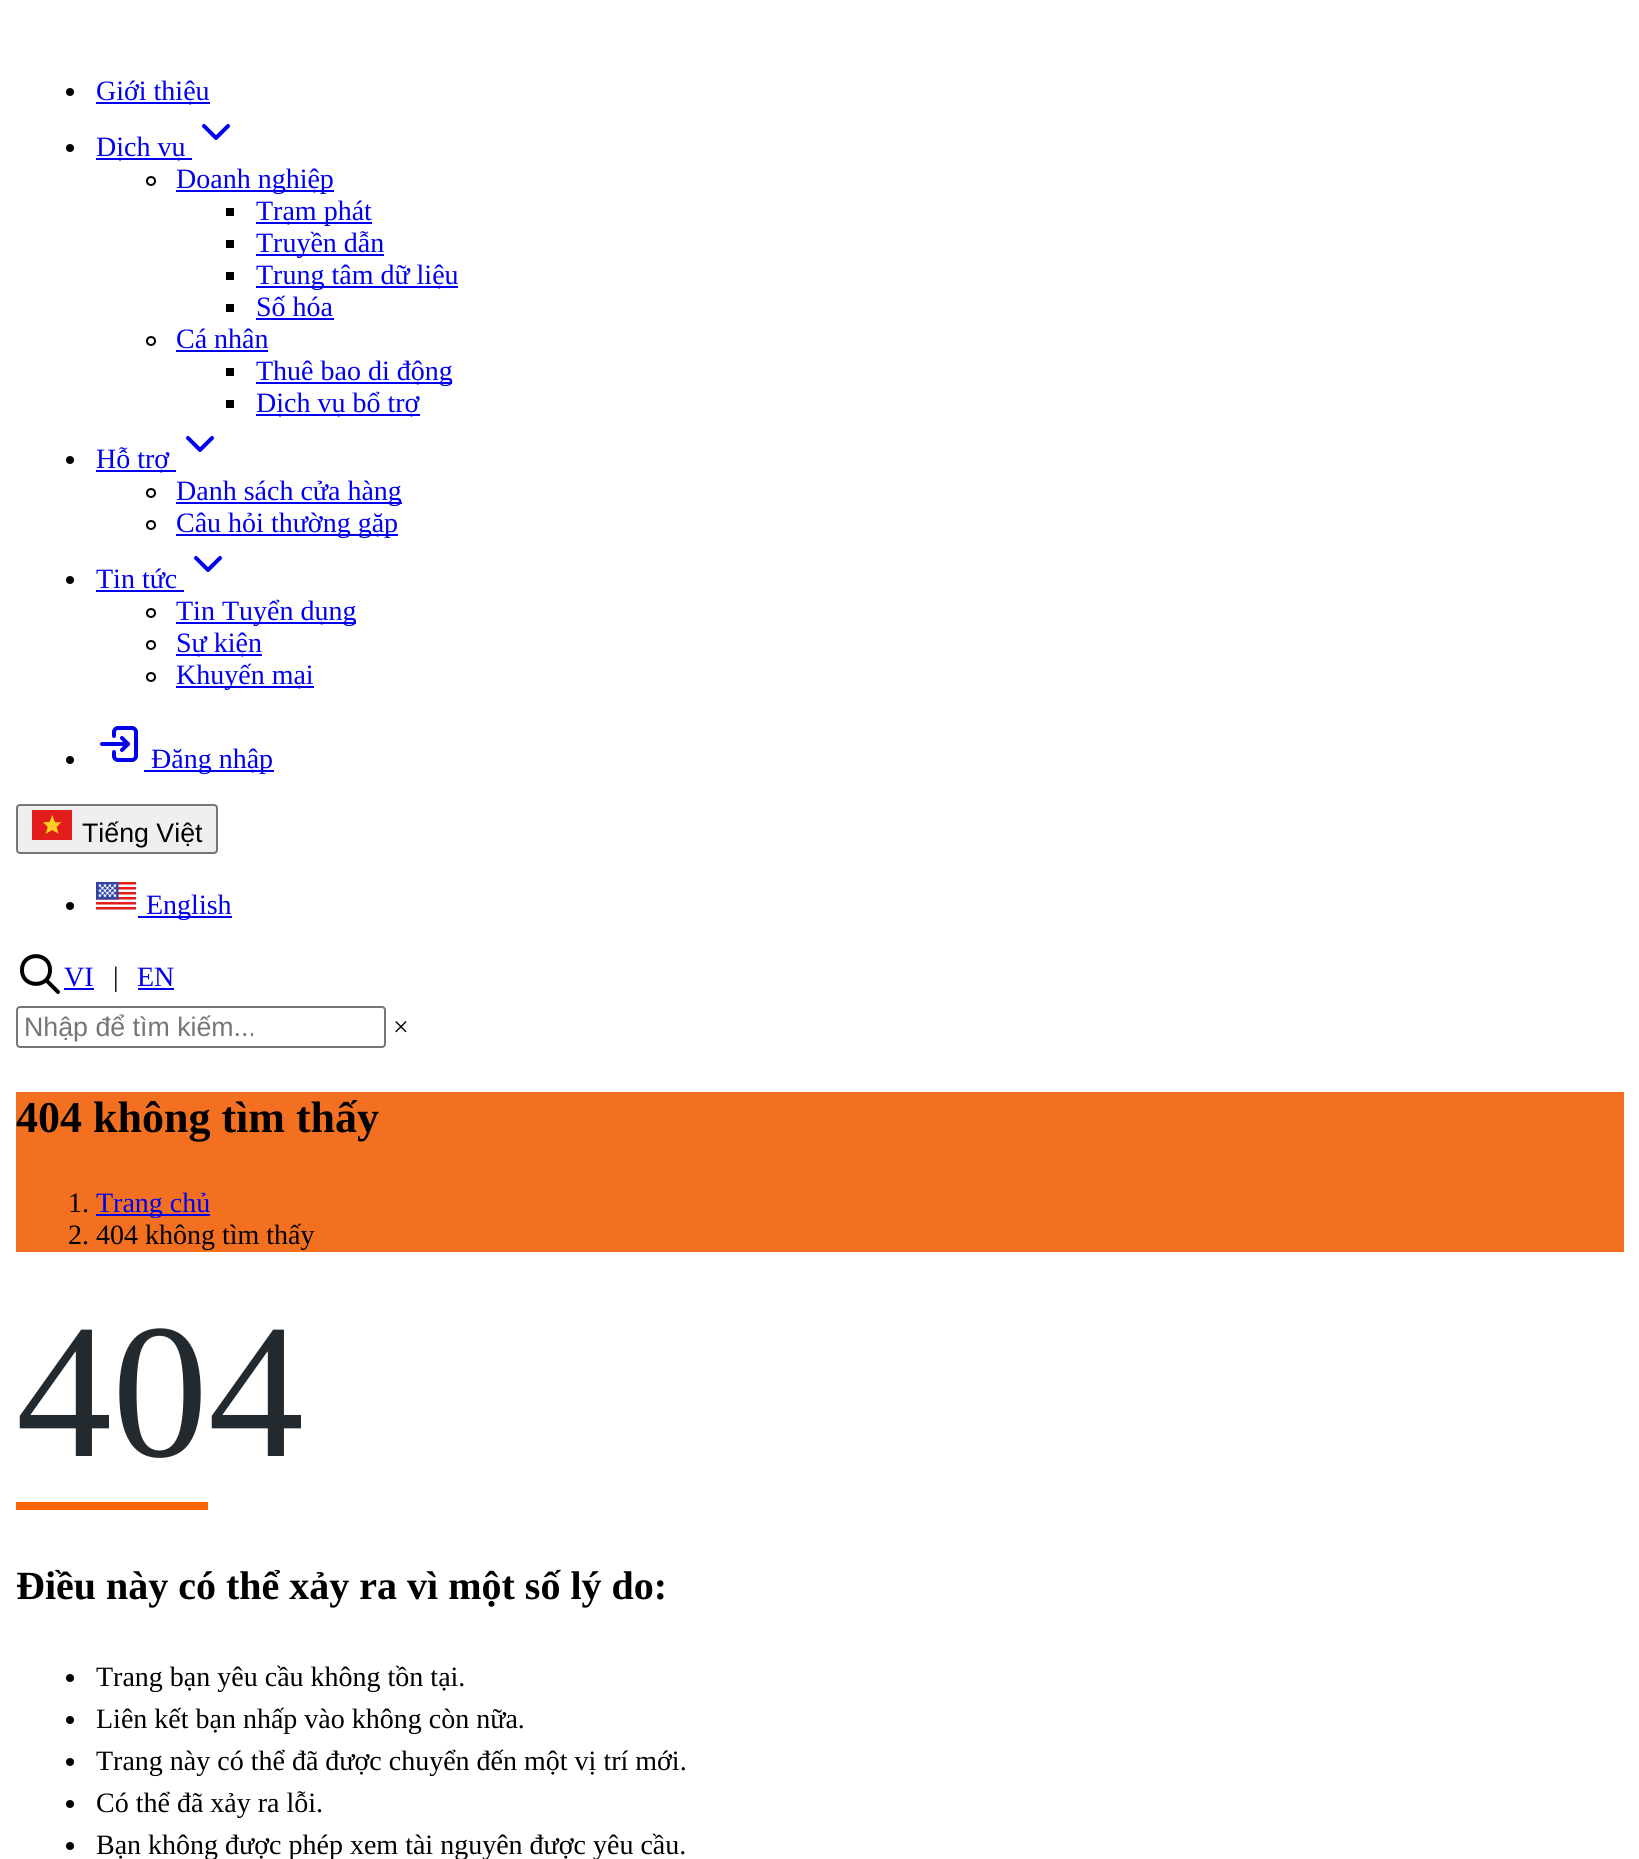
import math
import cairo



def rounded_rect(context, x, y, w, h, r):
    context.new_sub_path()
    for i, (u, v) in enumerate([(x + w - r, y + h - r), (x + r, y + h - r), (x + r, y + r), (x + w - r, y + r)]):
        context.arc(u, v, r, i * math.pi / 2, (i + 1) * math.pi / 2)
    context.close_path()


def draw_image(context, path, x, y, w, h):
    context.save()
    context.set_source_surface(cairo.ImageSurface.create_from_png(path), x, y)
    context.rectangle(x, y, w, h)
    context.fill()
    context.restore()


def draw(context):
    context.set_source_rgb(1, 1, 1)
    context.paint()
    context.set_source_rgb(0, 0, 0)
    context.arc(70, 92, 4, 0, 2 * math.pi)
    context.fill()
    context.set_source_rgb(0, 0, 238 / 255)
    context.rectangle(96, 102, 114, 2)
    context.fill()
    context.set_source_rgb(0, 0, 0)
    context.arc(70, 148, 4, 0, 2 * math.pi)
    context.fill()
    context.set_source_rgb(0, 0, 238 / 255)
    context.rectangle(96, 158, 96, 2)
    context.fill()
    context.new_path()
    context.move_to(204, 126)
    context.line_to(216, 138)
    context.line_to(228, 126)
    context.set_line_width(4)
    context.set_line_cap(cairo.LineCap.ROUND)
    context.set_line_join(cairo.LineJoin.ROUND)
    context.stroke()
    context.arc(151, 181, 4, 0, 2 * math.pi)
    context.set_source_rgb(0, 0, 0)
    context.set_line_width(2)
    context.set_line_cap(cairo.LineCap.BUTT)
    context.set_line_join(cairo.LineJoin.MITER)
    context.stroke()
    context.set_source_rgb(0, 0, 238 / 255)
    context.rectangle(176, 190, 158, 2)
    context.fill()
    context.set_source_rgb(0, 0, 0)
    context.rectangle(226, 208, 8, 8)
    context.fill()
    context.set_source_rgb(0, 0, 238 / 255)
    context.rectangle(256, 222, 116, 2)
    context.fill()
    context.set_source_rgb(0, 0, 0)
    context.rectangle(226, 240, 8, 8)
    context.fill()
    context.set_source_rgb(0, 0, 238 / 255)
    context.rectangle(256, 254, 128, 2)
    context.fill()
    context.set_source_rgb(0, 0, 0)
    context.rectangle(226, 272, 8, 8)
    context.fill()
    context.set_source_rgb(0, 0, 238 / 255)
    context.rectangle(256, 286, 202, 2)
    context.fill()
    context.set_source_rgb(0, 0, 0)
    context.rectangle(226, 304, 8, 8)
    context.fill()
    context.set_source_rgb(0, 0, 238 / 255)
    context.rectangle(256, 318, 78, 2)
    context.fill()
    context.arc(151, 341, 4, 0, 2 * math.pi)
    context.set_source_rgb(0, 0, 0)
    context.stroke()
    context.set_source_rgb(0, 0, 238 / 255)
    context.rectangle(176, 350, 92, 2)
    context.fill()
    context.set_source_rgb(0, 0, 0)
    context.rectangle(226, 368, 8, 8)
    context.fill()
    context.set_source_rgb(0, 0, 238 / 255)
    context.rectangle(256, 382, 196, 2)
    context.fill()
    context.set_source_rgb(0, 0, 0)
    context.rectangle(226, 400, 8, 8)
    context.fill()
    context.set_source_rgb(0, 0, 238 / 255)
    context.rectangle(256, 414, 164, 2)
    context.fill()
    context.set_source_rgb(0, 0, 0)
    context.arc(70, 460, 4, 0, 2 * math.pi)
    context.fill()
    context.set_source_rgb(0, 0, 238 / 255)
    context.rectangle(96, 470, 80, 2)
    context.fill()
    context.new_path()
    context.move_to(188, 438)
    context.line_to(200, 450)
    context.line_to(212, 438)
    context.set_line_width(4)
    context.set_line_cap(cairo.LineCap.ROUND)
    context.set_line_join(cairo.LineJoin.ROUND)
    context.stroke()
    context.arc(151, 493, 4, 0, 2 * math.pi)
    context.set_source_rgb(0, 0, 0)
    context.set_line_width(2)
    context.set_line_cap(cairo.LineCap.BUTT)
    context.set_line_join(cairo.LineJoin.MITER)
    context.stroke()
    context.set_source_rgb(0, 0, 238 / 255)
    context.rectangle(176, 502, 226, 2)
    context.fill()
    context.arc(151, 525, 4, 0, 2 * math.pi)
    context.set_source_rgb(0, 0, 0)
    context.stroke()
    context.set_source_rgb(0, 0, 238 / 255)
    context.rectangle(176, 534, 222, 2)
    context.fill()
    context.set_source_rgb(0, 0, 0)
    context.arc(70, 580, 4, 0, 2 * math.pi)
    context.fill()
    context.set_source_rgb(0, 0, 238 / 255)
    context.rectangle(96, 590, 88, 2)
    context.fill()
    context.new_path()
    context.move_to(196, 558)
    context.line_to(208, 570)
    context.line_to(220, 558)
    context.set_line_width(4)
    context.set_line_cap(cairo.LineCap.ROUND)
    context.set_line_join(cairo.LineJoin.ROUND)
    context.stroke()
    context.arc(151, 613, 4, 0, 2 * math.pi)
    context.set_source_rgb(0, 0, 0)
    context.set_line_width(2)
    context.set_line_cap(cairo.LineCap.BUTT)
    context.set_line_join(cairo.LineJoin.MITER)
    context.stroke()
    context.set_source_rgb(0, 0, 238 / 255)
    context.rectangle(176, 622, 180, 2)
    context.fill()
    context.arc(151, 645, 4, 0, 2 * math.pi)
    context.set_source_rgb(0, 0, 0)
    context.stroke()
    context.set_source_rgb(0, 0, 238 / 255)
    context.rectangle(176, 654, 86, 2)
    context.fill()
    context.arc(151, 677, 4, 0, 2 * math.pi)
    context.set_source_rgb(0, 0, 0)
    context.stroke()
    context.set_source_rgb(0, 0, 238 / 255)
    context.rectangle(176, 686, 138, 2)
    context.fill()
    context.set_source_rgb(0, 0, 0)
    context.arc(70, 760, 4, 0, 2 * math.pi)
    context.fill()
    draw_image(context, "images/1.png", 100, 726, 38, 36)
    context.set_source_rgb(0, 0, 238 / 255)
    context.rectangle(144, 770, 130, 2)
    context.fill()
    context.set_source_rgb(239 / 255, 239 / 255, 239 / 255)
    rounded_rect(context, 17, 805, 200, 48, 3)
    context.fill_preserve()
    context.set_source_rgb(118 / 255, 118 / 255, 118 / 255)
    context.stroke()
    draw_image(context, "images/2.png", 32, 810, 40, 30)
    context.set_source_rgb(0, 0, 0)
    context.arc(70, 906, 4, 0, 2 * math.pi)
    context.fill()
    draw_image(context, "images/3.png", 96, 882, 40, 30)
    context.set_source_rgb(0, 0, 238 / 255)
    context.rectangle(138, 916, 94, 2)
    context.fill()
    context.new_path()
    context.move_to(22, 970)
    context.curve_to(22, 988.5, 50, 988.5, 50, 970)
    context.curve_to(50, 951.5, 22, 951.5, 22, 970)
    context.move_to(58, 992)
    context.line_to(46, 980)
    context.set_source_rgb(0, 0, 0)
    context.set_line_width(4)
    context.set_line_cap(cairo.LineCap.ROUND)
    context.set_line_join(cairo.LineJoin.ROUND)
    context.stroke()
    context.set_source_rgb(0, 0, 238 / 255)
    context.rectangle(64, 988, 30, 2)
    context.fill()
    context.rectangle(138, 988, 36, 2)
    context.fill()
    rounded_rect(context, 17, 1007, 368, 40, 3)
    context.set_source_rgb(118 / 255, 118 / 255, 118 / 255)
    context.set_line_width(2)
    context.set_line_cap(cairo.LineCap.BUTT)
    context.set_line_join(cairo.LineJoin.MITER)
    context.stroke()
    context.set_source_rgb(243 / 255, 112 / 255, 33 / 255)
    context.rectangle(16, 1092, 1608, 160)
    context.fill()
    context.set_source_rgb(0, 0, 238 / 255)
    context.rectangle(96, 1214, 114, 2)
    context.fill()
    context.set_source_rgb(1, 102 / 255, 0)
    context.rectangle(16, 1502, 192, 8)
    context.fill()
    context.set_source_rgb(0, 0, 0)
    context.arc(70, 1678, 4, 0, 2 * math.pi)
    context.fill()
    context.arc(70, 1720, 4, 0, 2 * math.pi)
    context.fill()
    context.arc(70, 1762, 4, 0, 2 * math.pi)
    context.fill()
    context.arc(70, 1804, 4, 0, 2 * math.pi)
    context.fill()
    context.arc(70, 1846, 4, 0, 2 * math.pi)
    context.fill()
    context.select_font_face("Liberation Serif")
    context.set_font_size(28)
    context.set_source_rgb(0, 0, 238 / 255)
    context.move_to(96, 100)
    context.show_text("Giới thiệu")
    context.move_to(96, 156)
    context.show_text("Dịch vụ")
    context.move_to(176, 188)
    context.show_text("Doanh nghiệp")
    context.move_to(256, 220)
    context.show_text("Trạm phát")
    context.move_to(256, 252)
    context.show_text("Truyền dẫn")
    context.move_to(256, 284)
    context.show_text("Trung tâm dữ liệu")
    context.move_to(256, 316)
    context.show_text("Số hóa")
    context.move_to(176, 348)
    context.show_text("Cá nhân")
    context.move_to(256, 380)
    context.show_text("Thuê bao di động")
    context.move_to(256, 412)
    context.show_text("Dịch vụ bổ trợ")
    context.move_to(96, 468)
    context.show_text("Hỗ trợ")
    context.move_to(176, 500)
    context.show_text("Danh sách cửa hàng")
    context.move_to(176, 532)
    context.show_text("Câu hỏi thường gặp")
    context.move_to(96, 588)
    context.show_text("Tin tức")
    context.move_to(176, 620)
    context.show_text("Tin Tuyển dụng")
    context.move_to(176, 652)
    context.show_text("Sự kiện")
    context.move_to(176, 684)
    context.show_text("Khuyến mại")
    context.move_to(151, 768)
    context.show_text("Đăng nhập")
    context.select_font_face("Liberation Sans")
    context.set_font_size(26.75)
    context.set_source_rgb(0, 0, 0)
    context.move_to(82, 842)
    context.show_text("Tiếng Việt")
    context.select_font_face("Liberation Serif")
    context.set_font_size(28)
    context.set_source_rgb(0, 0, 238 / 255)
    context.move_to(146, 914)
    context.show_text("English")
    context.move_to(64, 986)
    context.show_text("VI")
    context.set_source_rgb(0, 0, 0)
    context.move_to(113, 986)
    context.show_text("|")
    context.set_source_rgb(0, 0, 238 / 255)
    context.move_to(137, 986)
    context.show_text("EN")
    context.select_font_face("Liberation Sans")
    context.set_font_size(26.75)
    context.set_source_rgb(117 / 255, 117 / 255, 117 / 255)
    context.move_to(24, 1036)
    context.show_text("Nhập để tìm kiếm...")
    context.select_font_face("Liberation Serif")
    context.set_font_size(28)
    context.set_source_rgb(0, 0, 0)
    context.move_to(393, 1036)
    context.show_text("×")
    context.select_font_face("Liberation Serif", cairo.FontSlant.NORMAL, cairo.FontWeight.BOLD)
    context.set_font_size(44)
    context.move_to(16, 1132)
    context.show_text("404 không tìm thấy")
    context.select_font_face("Liberation Serif")
    context.set_font_size(28)
    context.move_to(68, 1212)
    context.show_text("1.")
    context.set_source_rgb(0, 0, 238 / 255)
    context.move_to(96, 1212)
    context.show_text("Trang chủ")
    context.set_source_rgb(0, 0, 0)
    context.move_to(68, 1244)
    context.show_text("2. 404 không tìm thấy")
    context.set_font_size(192)
    context.set_source_rgb(34 / 255, 41 / 255, 47 / 255)
    context.move_to(16, 1456)
    context.show_text("404")
    context.select_font_face("Liberation Serif", cairo.FontSlant.NORMAL, cairo.FontWeight.BOLD)
    context.set_font_size(40)
    context.set_source_rgb(0, 0, 0)
    context.move_to(16, 1599)
    context.show_text("Điều này có thể xảy ra vì một số lý do:")
    context.select_font_face("Liberation Serif")
    context.set_font_size(28)
    context.move_to(96, 1686)
    context.show_text("Trang bạn yêu cầu không tồn tại.")
    context.move_to(96, 1728)
    context.show_text("Liên kết bạn nhấp vào không còn nữa.")
    context.move_to(96, 1770)
    context.show_text("Trang này có thể đã được chuyển đến một vị trí mới.")
    context.move_to(96, 1812)
    context.show_text("Có thể đã xảy ra lỗi.")
    context.move_to(96, 1854)
    context.show_text("Bạn không được phép xem tài nguyên được yêu cầu.")


surface = cairo.ImageSurface(cairo.Format.RGB24, 1639, 1859)
context = cairo.Context(surface)
options = cairo.FontOptions()
options.set_hint_metrics(cairo.HintMetrics.OFF)
options.set_hint_style(cairo.HintStyle.NONE)
context.set_font_options(options)
context.set_miter_limit(4)
draw(context)
surface.write_to_png("out.png")
